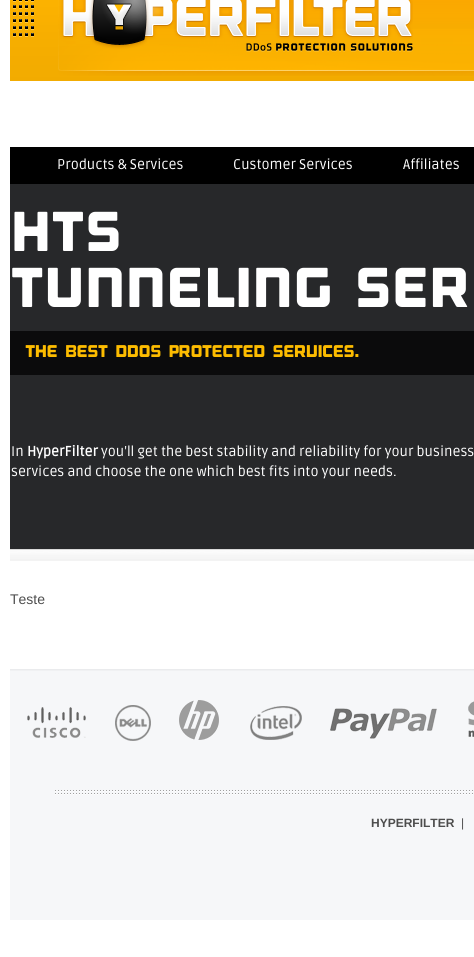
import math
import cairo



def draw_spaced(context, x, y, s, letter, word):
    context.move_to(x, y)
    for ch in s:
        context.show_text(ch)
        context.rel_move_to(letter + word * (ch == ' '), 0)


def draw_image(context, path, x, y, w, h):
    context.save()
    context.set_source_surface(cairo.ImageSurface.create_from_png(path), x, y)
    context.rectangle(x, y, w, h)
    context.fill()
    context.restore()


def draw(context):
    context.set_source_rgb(1, 1, 1)
    context.paint()
    draw_image(context, "images/1.png", 10, 0, 464, 81)
    draw_image(context, "images/2.png", 58, 0, 416, 76)
    draw_image(context, "images/3.png", 13, 0, 400, 52)
    context.set_source_rgb(0, 0, 0)
    context.rectangle(10, 147, 464, 37)
    context.fill()
    context.set_source_rgb(39 / 255, 40 / 255, 42 / 255)
    context.rectangle(10, 184, 464, 365)
    context.fill()
    context.set_source_rgb(11 / 255, 11 / 255, 12 / 255)
    context.rectangle(10, 331, 464, 44)
    context.fill()
    draw_image(context, "images/4.png", 10, 549, 464, 12)
    context.set_source_rgb(246 / 255, 247 / 255, 249 / 255)
    context.rectangle(10, 671, 464, 249)
    context.fill()
    draw_image(context, "images/5.png", 10, 669, 464, 2)
    draw_image(context, "images/6.png", 27, 707, 59, 31)
    draw_image(context, "images/7.png", 115, 705, 36, 36)
    draw_image(context, "images/8.png", 179, 700, 40, 40)
    draw_image(context, "images/9.png", 250, 706, 52, 34)
    draw_image(context, "images/10.png", 330, 708, 107, 31)
    draw_image(context, "images/11.png", 468, 701, 6, 36)
    draw_image(context, "images/12.png", 55, 790, 418, 5)
    context.select_font_face("Ruda")
    context.set_font_size(14)
    context.set_source_rgb(1, 1, 1)
    context.move_to(57, 169)
    context.show_text("Products & Services")
    context.move_to(233, 169)
    context.show_text("Customer Services")
    context.move_to(403, 169)
    context.show_text("Affiliates")
    context.select_font_face("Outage")
    context.set_font_size(56)
    draw_spaced(context, 10, 251, "HTS", -1, 0)
    draw_spaced(context, 10, 307, "TUNNELING SER", -1, 3)
    context.set_font_size(17)
    context.set_source_rgb(253 / 255, 188 / 255, 0)
    draw_spaced(context, 25, 357, "THE BEST DDOS PROTECTED SERVICES.", -1, 3)
    context.select_font_face("Ruda")
    context.set_font_size(14)
    context.set_source_rgb(1, 1, 1)
    context.move_to(11, 456)
    context.show_text("In")
    context.select_font_face("Ruda", cairo.FontSlant.NORMAL, cairo.FontWeight.BOLD)
    context.move_to(27, 456)
    context.show_text("HyperFilter")
    context.select_font_face("Ruda")
    context.move_to(101, 456)
    context.show_text("you'll get the best stability and reliability for your business")
    context.move_to(11, 476)
    context.show_text("services and choose the one which best fits into your needs.")
    context.select_font_face("Liberation Sans")
    context.set_source_rgb(77 / 255, 77 / 255, 77 / 255)
    context.move_to(10, 604)
    context.show_text("Teste")
    context.select_font_face("Liberation Sans", cairo.FontSlant.NORMAL, cairo.FontWeight.BOLD)
    context.set_font_size(12)
    context.move_to(371, 827)
    context.show_text("HYPERFILTER")
    context.select_font_face("Liberation Sans")
    draw_spaced(context, 461, 827, "|", 0, 3)


surface = cairo.ImageSurface(cairo.Format.RGB24, 474, 957)
context = cairo.Context(surface)
options = cairo.FontOptions()
options.set_hint_metrics(cairo.HintMetrics.OFF)
options.set_hint_style(cairo.HintStyle.NONE)
context.set_font_options(options)
context.set_miter_limit(4)
draw(context)
surface.write_to_png("out.png")
